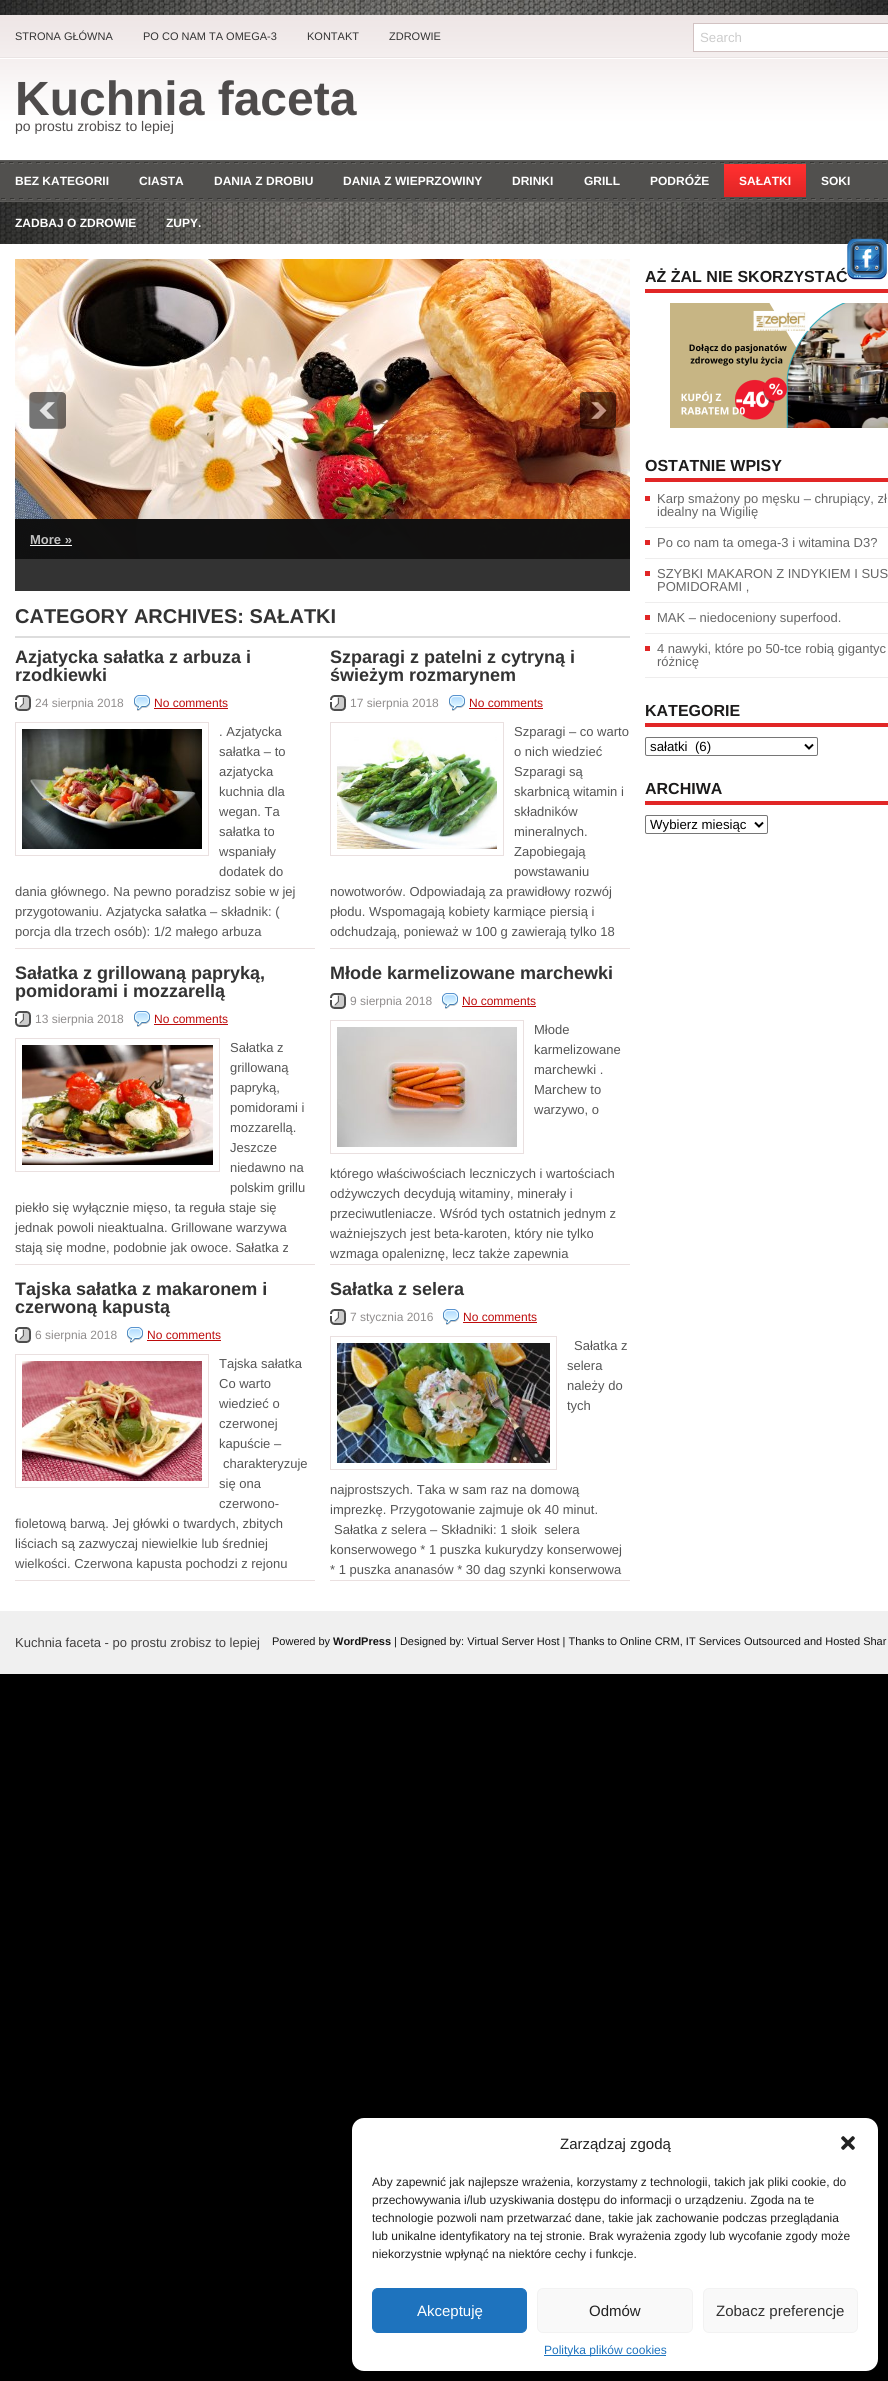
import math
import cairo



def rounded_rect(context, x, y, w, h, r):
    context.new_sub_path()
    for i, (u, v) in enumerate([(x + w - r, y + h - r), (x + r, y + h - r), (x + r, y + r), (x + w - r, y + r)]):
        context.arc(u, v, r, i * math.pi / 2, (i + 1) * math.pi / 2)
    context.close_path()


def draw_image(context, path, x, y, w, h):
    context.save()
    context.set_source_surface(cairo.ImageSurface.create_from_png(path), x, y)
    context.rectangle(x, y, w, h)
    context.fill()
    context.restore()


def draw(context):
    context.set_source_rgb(0, 0, 0)
    context.paint()
    draw_image(context, "images/1.png", 0, 0, 888, 244)
    draw_image(context, "images/2.png", 0, 15, 888, 145)
    context.set_source_rgb(1, 1, 1)
    context.rectangle(693.5, 23.5, 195, 28)
    context.fill_preserve()
    context.set_source_rgb(210 / 255, 194 / 255, 194 / 255)
    context.set_line_width(1)
    context.stroke()
    draw_image(context, "images/3.png", 0, 160, 888, 42)
    draw_image(context, "images/4.png", 724, 164, 82, 33)
    context.set_source_rgb(1, 1, 1)
    context.rectangle(0, 244, 888, 1367)
    context.fill()
    draw_image(context, "images/7.png", 15, 259, 615, 300)
    draw_image(context, "images/5.png", 29, 392, 37, 37)
    draw_image(context, "images/6.png", 580, 392, 36, 37)
    context.set_source_rgba(17 / 255, 17 / 255, 17 / 255, 0.7)
    context.rectangle(15, 519, 615, 40)
    context.fill()
    context.rectangle(15, 519, 615, 40)
    context.fill()
    context.rectangle(15, 519, 615, 40)
    context.fill()
    context.rectangle(15, 519, 615, 40)
    context.fill()
    context.set_source_rgb(254 / 255, 254 / 255, 254 / 255)
    context.rectangle(30, 545, 42, 1)
    context.fill()
    context.set_source_rgb(51 / 255, 51 / 255, 51 / 255)
    context.rectangle(15, 559, 615, 32)
    context.fill()
    context.set_source_rgb(221 / 255, 221 / 255, 221 / 255)
    context.rectangle(15, 636, 615, 2)
    context.fill()
    context.set_source_rgb(234 / 255, 224 / 255, 224 / 255)
    context.rectangle(15, 948, 300, 1)
    context.fill()
    draw_image(context, "images/8.png", 15, 695, 16, 16)
    draw_image(context, "images/9.png", 134, 695, 16, 16)
    context.set_source_rgb(189 / 255, 11 / 255, 11 / 255)
    context.rectangle(154, 708, 74, 1)
    context.fill()
    context.rectangle(15.5, 722.5, 193, 133)
    context.set_source_rgb(234 / 255, 224 / 255, 224 / 255)
    context.stroke()
    draw_image(context, "images/10.png", 22, 729, 180, 120)
    context.rectangle(330, 948, 300, 1)
    context.fill()
    draw_image(context, "images/8.png", 330, 695, 16, 16)
    draw_image(context, "images/9.png", 449, 695, 16, 16)
    context.set_source_rgb(189 / 255, 11 / 255, 11 / 255)
    context.rectangle(469, 708, 74, 1)
    context.fill()
    context.rectangle(330.5, 722.5, 173, 133)
    context.set_source_rgb(234 / 255, 224 / 255, 224 / 255)
    context.stroke()
    draw_image(context, "images/11.png", 337, 737, 160, 112)
    context.rectangle(15, 1264, 300, 1)
    context.fill()
    draw_image(context, "images/8.png", 15, 1011, 16, 16)
    draw_image(context, "images/9.png", 134, 1011, 16, 16)
    context.set_source_rgb(189 / 255, 11 / 255, 11 / 255)
    context.rectangle(154, 1024, 74, 1)
    context.fill()
    context.rectangle(15.5, 1038.5, 204, 133)
    context.set_source_rgb(234 / 255, 224 / 255, 224 / 255)
    context.stroke()
    draw_image(context, "images/12.png", 22, 1045, 191, 120)
    context.rectangle(330, 1264, 300, 1)
    context.fill()
    draw_image(context, "images/8.png", 330, 993, 16, 16)
    draw_image(context, "images/9.png", 442, 993, 16, 16)
    context.set_source_rgb(189 / 255, 11 / 255, 11 / 255)
    context.rectangle(462, 1006, 74, 1)
    context.fill()
    context.rectangle(330.5, 1020.5, 193, 133)
    context.set_source_rgb(234 / 255, 224 / 255, 224 / 255)
    context.stroke()
    draw_image(context, "images/13.png", 337, 1027, 180, 120)
    context.rectangle(15, 1580, 300, 1)
    context.fill()
    draw_image(context, "images/8.png", 15, 1327, 16, 16)
    draw_image(context, "images/9.png", 127, 1327, 16, 16)
    context.set_source_rgb(189 / 255, 11 / 255, 11 / 255)
    context.rectangle(147, 1340, 74, 1)
    context.fill()
    context.rectangle(15.5, 1354.5, 193, 133)
    context.set_source_rgb(234 / 255, 224 / 255, 224 / 255)
    context.stroke()
    draw_image(context, "images/14.png", 22, 1361, 180, 120)
    context.rectangle(330, 1580, 300, 1)
    context.fill()
    draw_image(context, "images/8.png", 330, 1309, 16, 16)
    draw_image(context, "images/9.png", 443, 1309, 16, 16)
    context.set_source_rgb(189 / 255, 11 / 255, 11 / 255)
    context.rectangle(463, 1322, 74, 1)
    context.fill()
    context.rectangle(330.5, 1336.5, 226, 133)
    context.set_source_rgb(234 / 255, 224 / 255, 224 / 255)
    context.stroke()
    draw_image(context, "images/15.png", 337, 1343, 213, 120)
    context.set_source_rgb(225 / 255, 38 / 255, 38 / 255)
    context.rectangle(645, 289, 243, 4)
    context.fill()
    draw_image(context, "images/16.png", 670, 303, 218, 125)
    context.rectangle(645, 478, 243, 4)
    context.fill()
    context.rectangle(645, 496, 5, 5)
    context.fill()
    context.set_source_rgb(238 / 255, 237 / 255, 237 / 255)
    context.rectangle(645, 527, 243, 1)
    context.fill()
    context.set_source_rgb(225 / 255, 38 / 255, 38 / 255)
    context.rectangle(645, 540, 5, 5)
    context.fill()
    context.set_source_rgb(238 / 255, 237 / 255, 237 / 255)
    context.rectangle(645, 558, 243, 1)
    context.fill()
    context.set_source_rgb(225 / 255, 38 / 255, 38 / 255)
    context.rectangle(645, 571, 5, 5)
    context.fill()
    context.set_source_rgb(238 / 255, 237 / 255, 237 / 255)
    context.rectangle(645, 602, 243, 1)
    context.fill()
    context.set_source_rgb(225 / 255, 38 / 255, 38 / 255)
    context.rectangle(645, 615, 5, 5)
    context.fill()
    context.set_source_rgb(238 / 255, 237 / 255, 237 / 255)
    context.rectangle(645, 633, 243, 1)
    context.fill()
    context.set_source_rgb(225 / 255, 38 / 255, 38 / 255)
    context.rectangle(645, 646, 5, 5)
    context.fill()
    context.set_source_rgb(238 / 255, 237 / 255, 237 / 255)
    context.rectangle(645, 677, 243, 1)
    context.fill()
    context.set_source_rgb(225 / 255, 38 / 255, 38 / 255)
    context.rectangle(645, 723, 243, 4)
    context.fill()
    rounded_rect(context, 645.5, 737.5, 172, 18, 1.5)
    context.set_source_rgb(118 / 255, 118 / 255, 118 / 255)
    context.stroke()
    context.new_path()
    context.move_to(805, 744.5)
    context.line_to(809, 748.5)
    context.line_to(813, 744.5)
    context.set_source_rgb(0, 0, 0)
    context.set_line_width(2)
    context.stroke()
    context.set_source_rgb(225 / 255, 38 / 255, 38 / 255)
    context.rectangle(645, 801, 243, 4)
    context.fill()
    rounded_rect(context, 645.5, 815.5, 122, 18, 1.5)
    context.set_source_rgb(118 / 255, 118 / 255, 118 / 255)
    context.set_line_width(1)
    context.stroke()
    context.new_path()
    context.move_to(755, 822.5)
    context.line_to(759, 826.5)
    context.line_to(763, 822.5)
    context.set_source_rgb(0, 0, 0)
    context.set_line_width(2)
    context.stroke()
    context.set_source_rgb(240 / 255, 240 / 255, 240 / 255)
    context.rectangle(0, 1611, 888, 63)
    context.fill()
    context.set_source_rgb(1, 1, 1)
    rounded_rect(context, 352, 2118, 526, 253, 12)
    context.fill()
    draw_image(context, "images/18.png", 841, 2136, 14, 14)
    context.set_source_rgb(30 / 255, 115 / 255, 190 / 255)
    rounded_rect(context, 372.5, 2288.5, 154, 44, 5.5)
    context.fill_preserve()
    context.set_line_width(1)
    context.stroke()
    context.set_source_rgb(249 / 255, 249 / 255, 249 / 255)
    rounded_rect(context, 537.5, 2288.5, 155, 44, 5.5)
    context.fill_preserve()
    context.set_source_rgb(242 / 255, 242 / 255, 242 / 255)
    context.stroke()
    context.set_source_rgb(249 / 255, 249 / 255, 249 / 255)
    rounded_rect(context, 703.5, 2288.5, 154, 44, 5.5)
    context.fill_preserve()
    context.set_source_rgb(242 / 255, 242 / 255, 242 / 255)
    context.stroke()
    context.set_source_rgb(30 / 255, 115 / 255, 190 / 255)
    context.rectangle(544, 2355, 122, 1)
    context.fill()
    context.select_font_face("Liberation Sans")
    context.set_font_size(11)
    context.set_source_rgb(51 / 255, 51 / 255, 51 / 255)
    context.move_to(15, 40)
    context.show_text("STRONA GŁÓWNA")
    context.move_to(143, 40)
    context.show_text("PO CO NAM TA OMEGA-3")
    context.move_to(307, 40)
    context.show_text("KONTAKT")
    context.move_to(389, 40)
    context.show_text("ZDROWIE")
    context.set_font_size(13.25)
    context.set_source_rgb(204 / 255, 204 / 255, 204 / 255)
    context.move_to(700, 42)
    context.show_text("Search")
    context.select_font_face("Liberation Sans", cairo.FontSlant.NORMAL, cairo.FontWeight.BOLD)
    context.set_font_size(48)
    context.set_source_rgb(78 / 255, 75 / 255, 75 / 255)
    context.move_to(15, 115)
    context.show_text("Kuchnia faceta")
    context.select_font_face("Liberation Sans")
    context.set_font_size(14)
    context.move_to(15, 131)
    context.show_text("po prostu zrobisz to lepiej")
    context.select_font_face("Liberation Sans", cairo.FontSlant.NORMAL, cairo.FontWeight.BOLD)
    context.set_font_size(12)
    context.set_source_rgb(1, 1, 1)
    context.move_to(15, 185)
    context.show_text("BEZ KATEGORII")
    context.move_to(139, 185)
    context.show_text("CIASTA")
    context.move_to(214, 185)
    context.show_text("DANIA Z DROBIU")
    context.move_to(343, 185)
    context.show_text("DANIA Z WIEPRZOWINY")
    context.move_to(512, 185)
    context.show_text("DRINKI")
    context.move_to(584, 185)
    context.show_text("GRILL")
    context.move_to(650, 185)
    context.show_text("PODRÓŻE")
    context.move_to(739, 185)
    context.show_text("SAŁATKI")
    context.move_to(821, 185)
    context.show_text("SOKI")
    context.move_to(15, 227)
    context.show_text("ZADBAJ O ZDROWIE")
    context.move_to(166, 227)
    context.show_text("ZUPY.")
    context.set_font_size(13)
    context.set_source_rgb(194 / 255, 194 / 255, 194 / 255)
    context.move_to(30, 544)
    context.show_text("More »")
    context.set_font_size(20)
    context.set_source_rgb(51 / 255, 51 / 255, 51 / 255)
    context.move_to(15, 623)
    context.show_text("CATEGORY ARCHIVES: SAŁATKI")
    context.set_font_size(18)
    context.move_to(15, 663)
    context.show_text("Azjatycka sałatka z arbuza i")
    context.move_to(15, 681)
    context.show_text("rzodkiewki")
    context.select_font_face("Liberation Sans")
    context.set_font_size(12)
    context.set_source_rgb(144 / 255, 141 / 255, 141 / 255)
    context.move_to(35, 707)
    context.show_text("24 sierpnia 2018")
    context.set_source_rgb(189 / 255, 11 / 255, 11 / 255)
    context.move_to(154, 707)
    context.show_text("No comments")
    context.set_font_size(13)
    context.set_source_rgb(85 / 255, 85 / 255, 85 / 255)
    context.move_to(219, 736)
    context.show_text(". Azjatycka")
    context.move_to(219, 756)
    context.show_text("sałatka – to")
    context.move_to(219, 776)
    context.show_text("azjatycka")
    context.move_to(219, 796)
    context.show_text("kuchnia dla")
    context.move_to(219, 816)
    context.show_text("wegan. Ta")
    context.move_to(219, 836)
    context.show_text("sałatka to")
    context.move_to(219, 856)
    context.show_text("wspaniały")
    context.move_to(219, 876)
    context.show_text("dodatek do")
    context.move_to(15, 896)
    context.show_text("dania głównego. Na pewno poradzisz sobie w jej")
    context.move_to(15, 916)
    context.show_text("przygotowaniu. Azjatycka sałatka – składnik: (")
    context.move_to(15, 936)
    context.show_text("porcja dla trzech osób): 1/2 małego arbuza")
    context.select_font_face("Liberation Sans", cairo.FontSlant.NORMAL, cairo.FontWeight.BOLD)
    context.set_font_size(18)
    context.set_source_rgb(51 / 255, 51 / 255, 51 / 255)
    context.move_to(330, 663)
    context.show_text("Szparagi z patelni z cytryną i")
    context.move_to(330, 681)
    context.show_text("świeżym rozmarynem")
    context.select_font_face("Liberation Sans")
    context.set_font_size(12)
    context.set_source_rgb(144 / 255, 141 / 255, 141 / 255)
    context.move_to(350, 707)
    context.show_text("17 sierpnia 2018")
    context.set_source_rgb(189 / 255, 11 / 255, 11 / 255)
    context.move_to(469, 707)
    context.show_text("No comments")
    context.set_font_size(13)
    context.set_source_rgb(85 / 255, 85 / 255, 85 / 255)
    context.move_to(514, 736)
    context.show_text("Szparagi – co warto")
    context.move_to(514, 756)
    context.show_text("o nich wiedzieć")
    context.move_to(514, 776)
    context.show_text("Szparagi są")
    context.move_to(514, 796)
    context.show_text("skarbnicą witamin i")
    context.move_to(514, 816)
    context.show_text("składników")
    context.move_to(514, 836)
    context.show_text("mineralnych.")
    context.move_to(514, 856)
    context.show_text("Zapobiegają")
    context.move_to(514, 876)
    context.show_text("powstawaniu")
    context.move_to(330, 896)
    context.show_text("nowotworów. Odpowiadają za prawidłowy rozwój")
    context.move_to(330, 916)
    context.show_text("płodu. Wspomagają kobiety karmiące piersią i")
    context.move_to(330, 936)
    context.show_text("odchudzają, ponieważ w 100 g zawierają tylko 18")
    context.select_font_face("Liberation Sans", cairo.FontSlant.NORMAL, cairo.FontWeight.BOLD)
    context.set_font_size(18)
    context.set_source_rgb(51 / 255, 51 / 255, 51 / 255)
    context.move_to(15, 979)
    context.show_text("Sałatka z grillowaną papryką,")
    context.move_to(15, 997)
    context.show_text("pomidorami i mozzarellą")
    context.select_font_face("Liberation Sans")
    context.set_font_size(12)
    context.set_source_rgb(144 / 255, 141 / 255, 141 / 255)
    context.move_to(35, 1023)
    context.show_text("13 sierpnia 2018")
    context.set_source_rgb(189 / 255, 11 / 255, 11 / 255)
    context.move_to(154, 1023)
    context.show_text("No comments")
    context.set_font_size(13)
    context.set_source_rgb(85 / 255, 85 / 255, 85 / 255)
    context.move_to(230, 1052)
    context.show_text("Sałatka z")
    context.move_to(230, 1072)
    context.show_text("grillowaną")
    context.move_to(230, 1092)
    context.show_text("papryką,")
    context.move_to(230, 1112)
    context.show_text("pomidorami i")
    context.move_to(230, 1132)
    context.show_text("mozzarellą.")
    context.move_to(230, 1152)
    context.show_text("Jeszcze")
    context.move_to(230, 1172)
    context.show_text("niedawno na")
    context.move_to(230, 1192)
    context.show_text("polskim grillu")
    context.move_to(15, 1212)
    context.show_text("piekło się wyłącznie mięso, ta reguła staje się")
    context.move_to(15, 1232)
    context.show_text("jednak powoli nieaktualna. Grillowane warzywa")
    context.move_to(15, 1252)
    context.show_text("stają się modne, podobnie jak owoce. Sałatka z")
    context.select_font_face("Liberation Sans", cairo.FontSlant.NORMAL, cairo.FontWeight.BOLD)
    context.set_font_size(18)
    context.set_source_rgb(51 / 255, 51 / 255, 51 / 255)
    context.move_to(330, 979)
    context.show_text("Młode karmelizowane marchewki")
    context.select_font_face("Liberation Sans")
    context.set_font_size(12)
    context.set_source_rgb(144 / 255, 141 / 255, 141 / 255)
    context.move_to(350, 1005)
    context.show_text("9 sierpnia 2018")
    context.set_source_rgb(189 / 255, 11 / 255, 11 / 255)
    context.move_to(462, 1005)
    context.show_text("No comments")
    context.set_font_size(13)
    context.set_source_rgb(85 / 255, 85 / 255, 85 / 255)
    context.move_to(534, 1034)
    context.show_text("Młode")
    context.move_to(534, 1054)
    context.show_text("karmelizowane")
    context.move_to(534, 1074)
    context.show_text("marchewki .")
    context.move_to(534, 1094)
    context.show_text("Marchew to")
    context.move_to(534, 1114)
    context.show_text("warzywo, o")
    context.move_to(330, 1178)
    context.show_text("którego właściwościach leczniczych i wartościach")
    context.move_to(330, 1198)
    context.show_text("odżywczych decydują witaminy, minerały i")
    context.move_to(330, 1218)
    context.show_text("przeciwutleniacze. Wśród tych ostatnich jednym z")
    context.move_to(330, 1238)
    context.show_text("ważniejszych jest beta-karoten, który nie tylko")
    context.move_to(330, 1258)
    context.show_text("wzmaga opaleniznę, lecz także zapewnia")
    context.select_font_face("Liberation Sans", cairo.FontSlant.NORMAL, cairo.FontWeight.BOLD)
    context.set_font_size(18)
    context.set_source_rgb(51 / 255, 51 / 255, 51 / 255)
    context.move_to(15, 1295)
    context.show_text("Tajska sałatka z makaronem i")
    context.move_to(15, 1313)
    context.show_text("czerwoną kapustą")
    context.select_font_face("Liberation Sans")
    context.set_font_size(12)
    context.set_source_rgb(144 / 255, 141 / 255, 141 / 255)
    context.move_to(35, 1339)
    context.show_text("6 sierpnia 2018")
    context.set_source_rgb(189 / 255, 11 / 255, 11 / 255)
    context.move_to(147, 1339)
    context.show_text("No comments")
    context.set_font_size(13)
    context.set_source_rgb(85 / 255, 85 / 255, 85 / 255)
    context.move_to(219, 1368)
    context.show_text("Tajska sałatka")
    context.move_to(219, 1388)
    context.show_text("Co warto")
    context.move_to(219, 1408)
    context.show_text("wiedzieć o")
    context.move_to(219, 1428)
    context.show_text("czerwonej")
    context.move_to(219, 1448)
    context.show_text("kapuście –")
    context.move_to(223, 1468)
    context.show_text("charakteryzuje")
    context.move_to(219, 1488)
    context.show_text("się ona")
    context.move_to(219, 1508)
    context.show_text("czerwono-")
    context.move_to(15, 1528)
    context.show_text("fioletową barwą. Jej główki o twardych, zbitych")
    context.move_to(15, 1548)
    context.show_text("liściach są zazwyczaj niewielkie lub średniej")
    context.move_to(15, 1568)
    context.show_text("wielkości. Czerwona kapusta pochodzi z rejonu")
    context.select_font_face("Liberation Sans", cairo.FontSlant.NORMAL, cairo.FontWeight.BOLD)
    context.set_font_size(18)
    context.set_source_rgb(51 / 255, 51 / 255, 51 / 255)
    context.move_to(330, 1295)
    context.show_text("Sałatka z selera")
    context.select_font_face("Liberation Sans")
    context.set_font_size(12)
    context.set_source_rgb(144 / 255, 141 / 255, 141 / 255)
    context.move_to(350, 1321)
    context.show_text("7 stycznia 2016")
    context.set_source_rgb(189 / 255, 11 / 255, 11 / 255)
    context.move_to(463, 1321)
    context.show_text("No comments")
    context.set_font_size(13)
    context.set_source_rgb(85 / 255, 85 / 255, 85 / 255)
    context.move_to(574, 1350)
    context.show_text("Sałatka z")
    context.move_to(567, 1370)
    context.show_text("selera")
    context.move_to(567, 1390)
    context.show_text("należy do")
    context.move_to(567, 1410)
    context.show_text("tych")
    context.move_to(330, 1494)
    context.show_text("najprostszych. Taka w sam raz na domową")
    context.move_to(330, 1514)
    context.show_text("imprezkę. Przygotowanie zajmuje ok 40 minut.")
    context.move_to(334, 1534)
    context.show_text("Sałatka z selera – Składniki: 1 słoik  selera")
    context.move_to(330, 1554)
    context.show_text("konserwowego * 1 puszka kukurydzy konserwowej")
    context.move_to(330, 1574)
    context.show_text("* 1 puszka ananasów * 30 dag szynki konserwowa")
    context.select_font_face("Liberation Sans", cairo.FontSlant.NORMAL, cairo.FontWeight.BOLD)
    context.set_font_size(16)
    context.set_source_rgb(28 / 255, 27 / 255, 27 / 255)
    context.move_to(645, 282)
    context.show_text("AŻ ŻAL NIE SKORZYSTAĆ")
    context.move_to(645, 471)
    context.show_text("OSTATNIE WPISY")
    context.select_font_face("Liberation Sans")
    context.set_font_size(13)
    context.set_source_rgb(102 / 255, 102 / 255, 102 / 255)
    context.move_to(657, 503)
    context.show_text("Karp smażony po męsku – chrupiący, zł")
    context.move_to(657, 516)
    context.show_text("idealny na Wigilię")
    context.move_to(657, 547)
    context.show_text("Po co nam ta omega-3 i witamina D3?")
    context.move_to(657, 578)
    context.show_text("SZYBKI MAKARON Z INDYKIEM I SUS")
    context.move_to(657, 591)
    context.show_text("POMIDORAMI ,")
    context.move_to(657, 622)
    context.show_text("MAK – niedoceniony superfood.")
    context.move_to(657, 653)
    context.show_text("4 nawyki, które po 50-tce robią gigantyc")
    context.move_to(657, 666)
    context.show_text("różnicę")
    context.select_font_face("Liberation Sans", cairo.FontSlant.NORMAL, cairo.FontWeight.BOLD)
    context.set_font_size(16)
    context.set_source_rgb(28 / 255, 27 / 255, 27 / 255)
    context.move_to(645, 716)
    context.show_text("KATEGORIE")
    context.select_font_face("Liberation Sans")
    context.set_font_size(13.25)
    context.set_source_rgb(0, 0, 0)
    context.move_to(650, 751)
    context.show_text("sałatki  (6)")
    context.select_font_face("Liberation Sans", cairo.FontSlant.NORMAL, cairo.FontWeight.BOLD)
    context.set_font_size(16)
    context.set_source_rgb(28 / 255, 27 / 255, 27 / 255)
    context.move_to(645, 794)
    context.show_text("ARCHIWA")
    context.select_font_face("Liberation Sans")
    context.set_font_size(13.25)
    context.set_source_rgb(0, 0, 0)
    context.move_to(650, 829)
    context.show_text("Wybierz miesiąc")
    context.set_font_size(13)
    context.set_source_rgb(67 / 255, 65 / 255, 65 / 255)
    context.move_to(15, 1647)
    context.show_text("Kuchnia faceta - po prostu zrobisz to lepiej")
    context.set_font_size(11)
    context.set_source_rgb(19 / 255, 19 / 255, 19 / 255)
    context.move_to(272, 1645)
    context.show_text("Powered by")
    context.select_font_face("Liberation Sans", cairo.FontSlant.NORMAL, cairo.FontWeight.BOLD)
    context.move_to(333, 1645)
    context.show_text("WordPress")
    context.select_font_face("Liberation Sans")
    context.move_to(394, 1645)
    context.show_text("| Designed by: Virtual Server Host | Thanks to Online CRM, IT Services Outsourced and Hosted Shar")
    draw_image(context, "images/17.png", 847, 238, 40, 42)
    context.set_font_size(15)
    context.set_source_rgb(34 / 255, 34 / 255, 34 / 255)
    context.move_to(560, 2149)
    context.show_text("Zarządzaj zgodą")
    context.set_font_size(12)
    context.move_to(372, 2186)
    context.show_text("Aby zapewnić jak najlepsze wrażenia, korzystamy z technologii, takich jak pliki cookie, do")
    context.move_to(372, 2204)
    context.show_text("przechowywania i/lub uzyskiwania dostępu do informacji o urządzeniu. Zgoda na te")
    context.move_to(372, 2222)
    context.show_text("technologie pozwoli nam przetwarzać dane, takie jak zachowanie podczas przeglądania")
    context.move_to(372, 2240)
    context.show_text("lub unikalne identyfikatory na tej stronie. Brak wyrażenia zgody lub wycofanie zgody może")
    context.move_to(372, 2258)
    context.show_text("niekorzystnie wpłynąć na niektóre cechy i funkcje.")
    context.set_font_size(15)
    context.set_source_rgb(1, 1, 1)
    context.move_to(417, 2316)
    context.show_text("Akceptuję")
    context.set_source_rgb(34 / 255, 34 / 255, 34 / 255)
    context.move_to(589, 2316)
    context.show_text("Odmów")
    context.set_source_rgb(51 / 255, 51 / 255, 51 / 255)
    context.move_to(716, 2316)
    context.show_text("Zobacz preferencje")
    context.set_font_size(12)
    context.set_source_rgb(30 / 255, 115 / 255, 190 / 255)
    context.move_to(544, 2354)
    context.show_text("Polityka plików cookies")


surface = cairo.ImageSurface(cairo.Format.RGB24, 888, 2381)
context = cairo.Context(surface)
options = cairo.FontOptions()
options.set_hint_metrics(cairo.HintMetrics.OFF)
options.set_hint_style(cairo.HintStyle.NONE)
context.set_font_options(options)
context.set_miter_limit(4)
draw(context)
surface.write_to_png("out.png")
